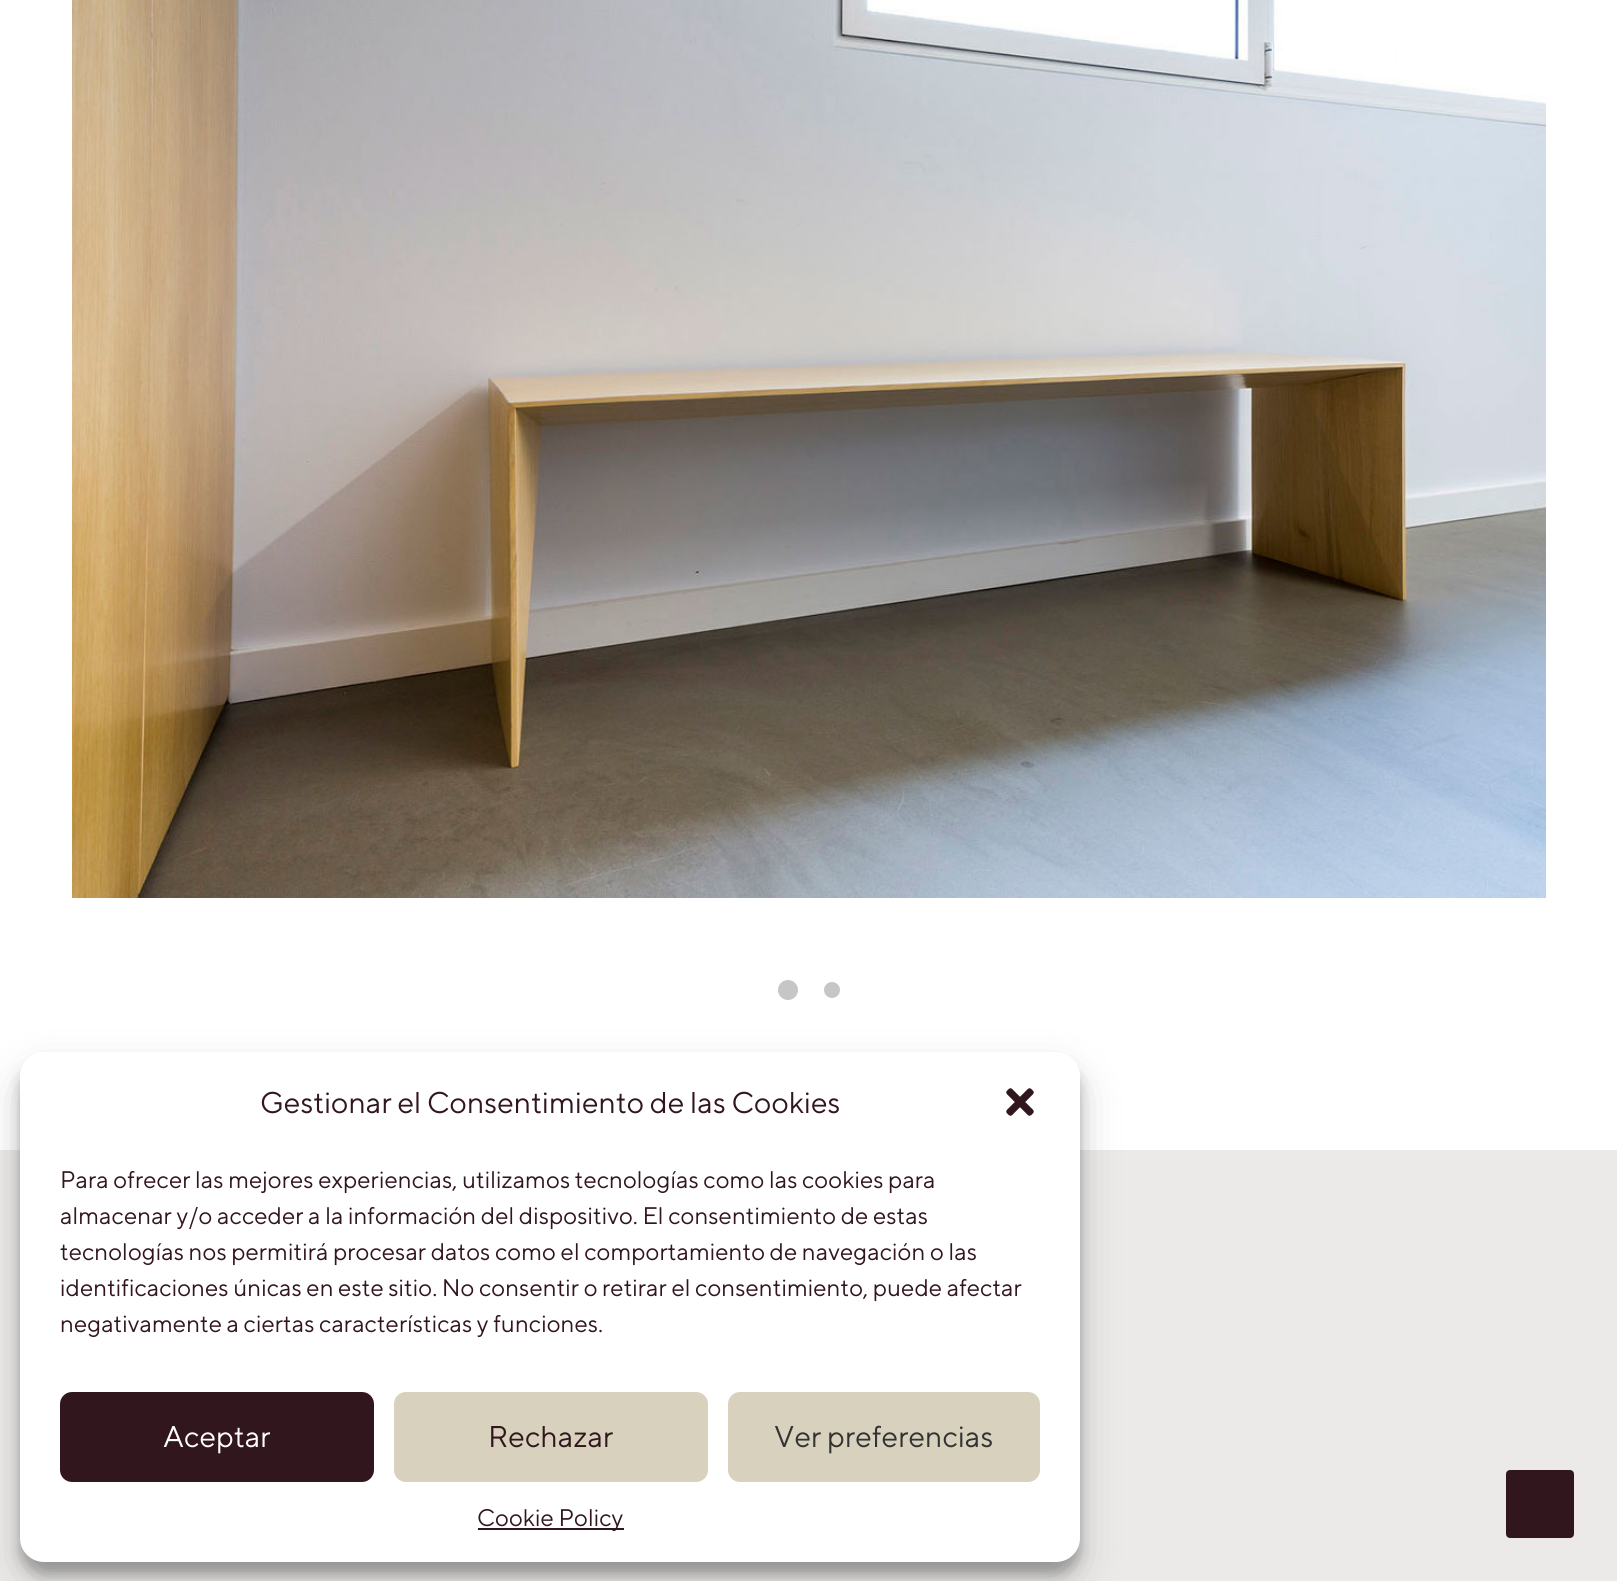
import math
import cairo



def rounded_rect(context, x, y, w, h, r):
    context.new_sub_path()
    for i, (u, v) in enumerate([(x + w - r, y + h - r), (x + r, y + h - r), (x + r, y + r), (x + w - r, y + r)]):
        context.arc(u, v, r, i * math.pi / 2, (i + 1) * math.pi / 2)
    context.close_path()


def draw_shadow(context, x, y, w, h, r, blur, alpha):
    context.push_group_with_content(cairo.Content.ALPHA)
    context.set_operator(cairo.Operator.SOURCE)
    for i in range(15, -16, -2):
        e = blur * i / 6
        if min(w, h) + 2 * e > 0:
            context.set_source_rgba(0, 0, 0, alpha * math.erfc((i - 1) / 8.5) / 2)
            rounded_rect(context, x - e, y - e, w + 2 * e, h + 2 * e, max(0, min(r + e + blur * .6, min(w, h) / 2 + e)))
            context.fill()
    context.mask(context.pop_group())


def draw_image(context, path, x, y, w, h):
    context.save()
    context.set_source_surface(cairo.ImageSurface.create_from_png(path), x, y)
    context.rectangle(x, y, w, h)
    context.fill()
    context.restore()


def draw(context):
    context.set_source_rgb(1, 1, 1)
    context.paint()
    draw_image(context, "images/1.png", 72, 0, 1474, 898)
    context.set_source_rgb(198 / 255, 198 / 255, 199 / 255)
    context.arc(788, 990, 10, 0, 2 * math.pi)
    context.fill()
    context.arc(832, 990, 8, 0, 2 * math.pi)
    context.fill()
    context.set_source_rgb(235 / 255, 234 / 255, 233 / 255)
    context.rectangle(0, 1150, 1617, 431)
    context.fill()
    context.set_source_rgb(0, 0, 0)
    draw_shadow(context, 20, 1064, 1060, 510, 24, 6, 0.23)
    draw_shadow(context, 20, 1072, 1060, 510, 24, 20, 0.19)
    context.set_source_rgb(1, 1, 1)
    rounded_rect(context, 20, 1052, 1060, 510, 24)
    context.fill()
    draw_image(context, "images/2.png", 1006, 1088, 28, 28)
    context.set_source_rgb(50 / 255, 22 / 255, 29 / 255)
    rounded_rect(context, 61, 1393, 312, 88, 11)
    context.fill_preserve()
    context.stroke()
    context.set_source_rgb(216 / 255, 209 / 255, 190 / 255)
    rounded_rect(context, 395, 1393, 312, 88, 11)
    context.fill_preserve()
    context.stroke()
    rounded_rect(context, 729, 1393, 310, 88, 11)
    context.fill_preserve()
    context.stroke()
    context.set_source_rgb(50 / 255, 22 / 255, 29 / 255)
    context.rectangle(478, 1528, 146, 2)
    context.fill()
    rounded_rect(context, 1507, 1471, 66, 66, 3)
    context.fill_preserve()
    context.stroke()
    context.select_font_face("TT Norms")
    context.set_font_size(30)
    context.move_to(260, 1113)
    context.show_text("Gestionar el Consentimiento de las Cookies")
    context.set_font_size(24)
    context.move_to(60, 1188)
    context.show_text("Para ofrecer las mejores experiencias, utilizamos tecnologías como las cookies para")
    context.move_to(60, 1224)
    context.show_text("almacenar y/o acceder a la información del dispositivo. El consentimiento de estas")
    context.move_to(60, 1260)
    context.show_text("tecnologías nos permitirá procesar datos como el comportamiento de navegación o las")
    context.move_to(60, 1296)
    context.show_text("identificaciones únicas en este sitio. No consentir o retirar el consentimiento, puede afectar")
    context.move_to(60, 1332)
    context.show_text("negativamente a ciertas características y funciones.")
    context.set_font_size(30)
    context.set_source_rgb(1, 1, 1)
    context.move_to(163, 1447)
    context.show_text("Aceptar")
    context.set_source_rgb(50 / 255, 22 / 255, 29 / 255)
    context.move_to(488, 1447)
    context.show_text("Rechazar")
    context.set_source_rgb(51 / 255, 51 / 255, 51 / 255)
    context.move_to(774, 1447)
    context.show_text("Ver preferencias")
    context.set_font_size(24)
    context.set_source_rgb(50 / 255, 22 / 255, 29 / 255)
    context.move_to(477, 1526)
    context.show_text("Cookie Policy")


surface = cairo.ImageSurface(cairo.Format.RGB24, 1617, 1581)
context = cairo.Context(surface)
options = cairo.FontOptions()
options.set_hint_metrics(cairo.HintMetrics.OFF)
options.set_hint_style(cairo.HintStyle.NONE)
context.set_font_options(options)
context.set_miter_limit(4)
draw(context)
surface.write_to_png("out.png")
